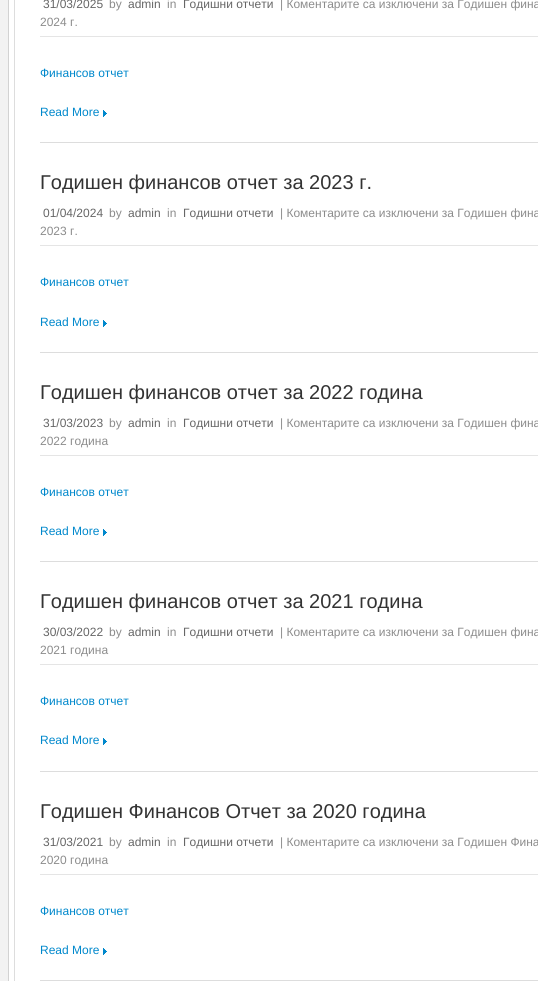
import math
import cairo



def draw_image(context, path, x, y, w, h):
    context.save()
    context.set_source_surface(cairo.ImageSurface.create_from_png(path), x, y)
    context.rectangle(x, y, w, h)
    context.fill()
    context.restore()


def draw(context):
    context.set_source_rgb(242 / 255, 242 / 255, 242 / 255)
    context.paint()
    context.set_source_rgb(1, 1, 1)
    context.rectangle(9, 0, 529, 981)
    context.fill()
    context.set_source_rgb(210 / 255, 210 / 255, 210 / 255)
    context.rectangle(8, 0, 1, 981)
    context.fill()
    context.rectangle(14.5, -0.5, 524, 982)
    context.set_source_rgb(221 / 255, 221 / 255, 221 / 255)
    context.set_line_width(1)
    context.stroke()
    context.rectangle(40, 142, 498, 1)
    context.fill()
    context.set_source_rgb(229 / 255, 229 / 255, 229 / 255)
    context.rectangle(40, 36, 498, 1)
    context.fill()
    draw_image(context, "images/1.png", 103, 110, 4, 7)
    context.set_source_rgb(221 / 255, 221 / 255, 221 / 255)
    context.rectangle(40, 352, 498, 1)
    context.fill()
    context.set_source_rgb(229 / 255, 229 / 255, 229 / 255)
    context.rectangle(40, 245, 498, 1)
    context.fill()
    draw_image(context, "images/1.png", 103, 320, 4, 7)
    context.set_source_rgb(221 / 255, 221 / 255, 221 / 255)
    context.rectangle(40, 561, 498, 1)
    context.fill()
    context.set_source_rgb(229 / 255, 229 / 255, 229 / 255)
    context.rectangle(40, 455, 498, 1)
    context.fill()
    draw_image(context, "images/1.png", 103, 529, 4, 7)
    context.set_source_rgb(221 / 255, 221 / 255, 221 / 255)
    context.rectangle(40, 771, 498, 1)
    context.fill()
    context.set_source_rgb(229 / 255, 229 / 255, 229 / 255)
    context.rectangle(40, 664, 498, 1)
    context.fill()
    draw_image(context, "images/1.png", 103, 738, 4, 7)
    context.set_source_rgb(221 / 255, 221 / 255, 221 / 255)
    context.rectangle(40, 980, 498, 1)
    context.fill()
    context.set_source_rgb(229 / 255, 229 / 255, 229 / 255)
    context.rectangle(40, 874, 498, 1)
    context.fill()
    draw_image(context, "images/1.png", 103, 948, 4, 7)
    context.select_font_face("Liberation Sans")
    context.set_font_size(12)
    context.set_source_rgb(102 / 255, 102 / 255, 102 / 255)
    context.move_to(43, 8)
    context.show_text("31/03/2025")
    context.set_source_rgb(140 / 255, 140 / 255, 140 / 255)
    context.move_to(109, 8)
    context.show_text("by")
    context.set_source_rgb(102 / 255, 102 / 255, 102 / 255)
    context.move_to(128, 8)
    context.show_text("admin")
    context.set_source_rgb(140 / 255, 140 / 255, 140 / 255)
    context.move_to(167, 8)
    context.show_text("in")
    context.set_source_rgb(102 / 255, 102 / 255, 102 / 255)
    context.move_to(183, 8)
    context.show_text("Годишни отчети")
    context.set_source_rgb(140 / 255, 140 / 255, 140 / 255)
    context.move_to(280, 8)
    context.show_text("| Коментарите са изключени за Годишен фина")
    context.move_to(40, 26)
    context.show_text("2024 г.")
    context.set_source_rgb(0, 136 / 255, 204 / 255)
    context.move_to(40, 77)
    context.show_text("Финансов отчет")
    context.move_to(40, 116)
    context.show_text("Read More")
    context.set_font_size(20)
    context.set_source_rgb(51 / 255, 51 / 255, 51 / 255)
    context.move_to(40, 189)
    context.show_text("Годишен финансов отчет за 2023 г.")
    context.set_font_size(12)
    context.set_source_rgb(102 / 255, 102 / 255, 102 / 255)
    context.move_to(43, 217)
    context.show_text("01/04/2024")
    context.set_source_rgb(140 / 255, 140 / 255, 140 / 255)
    context.move_to(109, 217)
    context.show_text("by")
    context.set_source_rgb(102 / 255, 102 / 255, 102 / 255)
    context.move_to(128, 217)
    context.show_text("admin")
    context.set_source_rgb(140 / 255, 140 / 255, 140 / 255)
    context.move_to(167, 217)
    context.show_text("in")
    context.set_source_rgb(102 / 255, 102 / 255, 102 / 255)
    context.move_to(183, 217)
    context.show_text("Годишни отчети")
    context.set_source_rgb(140 / 255, 140 / 255, 140 / 255)
    context.move_to(280, 217)
    context.show_text("| Коментарите са изключени за Годишен фина")
    context.move_to(40, 235)
    context.show_text("2023 г.")
    context.set_source_rgb(0, 136 / 255, 204 / 255)
    context.move_to(40, 286)
    context.show_text("Финансов отчет")
    context.move_to(40, 326)
    context.show_text("Read More")
    context.set_font_size(20)
    context.set_source_rgb(51 / 255, 51 / 255, 51 / 255)
    context.move_to(40, 399)
    context.show_text("Годишен финансов отчет за 2022 година")
    context.set_font_size(12)
    context.set_source_rgb(102 / 255, 102 / 255, 102 / 255)
    context.move_to(43, 427)
    context.show_text("31/03/2023")
    context.set_source_rgb(140 / 255, 140 / 255, 140 / 255)
    context.move_to(109, 427)
    context.show_text("by")
    context.set_source_rgb(102 / 255, 102 / 255, 102 / 255)
    context.move_to(128, 427)
    context.show_text("admin")
    context.set_source_rgb(140 / 255, 140 / 255, 140 / 255)
    context.move_to(167, 427)
    context.show_text("in")
    context.set_source_rgb(102 / 255, 102 / 255, 102 / 255)
    context.move_to(183, 427)
    context.show_text("Годишни отчети")
    context.set_source_rgb(140 / 255, 140 / 255, 140 / 255)
    context.move_to(280, 427)
    context.show_text("| Коментарите са изключени за Годишен фина")
    context.move_to(40, 445)
    context.show_text("2022 година")
    context.set_source_rgb(0, 136 / 255, 204 / 255)
    context.move_to(40, 496)
    context.show_text("Финансов отчет")
    context.move_to(40, 535)
    context.show_text("Read More")
    context.set_font_size(20)
    context.set_source_rgb(51 / 255, 51 / 255, 51 / 255)
    context.move_to(40, 608)
    context.show_text("Годишен финансов отчет за 2021 година")
    context.set_font_size(12)
    context.set_source_rgb(102 / 255, 102 / 255, 102 / 255)
    context.move_to(43, 636)
    context.show_text("30/03/2022")
    context.set_source_rgb(140 / 255, 140 / 255, 140 / 255)
    context.move_to(109, 636)
    context.show_text("by")
    context.set_source_rgb(102 / 255, 102 / 255, 102 / 255)
    context.move_to(128, 636)
    context.show_text("admin")
    context.set_source_rgb(140 / 255, 140 / 255, 140 / 255)
    context.move_to(167, 636)
    context.show_text("in")
    context.set_source_rgb(102 / 255, 102 / 255, 102 / 255)
    context.move_to(183, 636)
    context.show_text("Годишни отчети")
    context.set_source_rgb(140 / 255, 140 / 255, 140 / 255)
    context.move_to(280, 636)
    context.show_text("| Коментарите са изключени за Годишен фина")
    context.move_to(40, 654)
    context.show_text("2021 година")
    context.set_source_rgb(0, 136 / 255, 204 / 255)
    context.move_to(40, 705)
    context.show_text("Финансов отчет")
    context.move_to(40, 744)
    context.show_text("Read More")
    context.set_font_size(20)
    context.set_source_rgb(51 / 255, 51 / 255, 51 / 255)
    context.move_to(40, 818)
    context.show_text("Годишен Финансов Отчет за 2020 година")
    context.set_font_size(12)
    context.set_source_rgb(102 / 255, 102 / 255, 102 / 255)
    context.move_to(43, 846)
    context.show_text("31/03/2021")
    context.set_source_rgb(140 / 255, 140 / 255, 140 / 255)
    context.move_to(109, 846)
    context.show_text("by")
    context.set_source_rgb(102 / 255, 102 / 255, 102 / 255)
    context.move_to(128, 846)
    context.show_text("admin")
    context.set_source_rgb(140 / 255, 140 / 255, 140 / 255)
    context.move_to(167, 846)
    context.show_text("in")
    context.set_source_rgb(102 / 255, 102 / 255, 102 / 255)
    context.move_to(183, 846)
    context.show_text("Годишни отчети")
    context.set_source_rgb(140 / 255, 140 / 255, 140 / 255)
    context.move_to(280, 846)
    context.show_text("| Коментарите са изключени за Годишен Фина")
    context.move_to(40, 864)
    context.show_text("2020 година")
    context.set_source_rgb(0, 136 / 255, 204 / 255)
    context.move_to(40, 915)
    context.show_text("Финансов отчет")
    context.move_to(40, 954)
    context.show_text("Read More")


surface = cairo.ImageSurface(cairo.Format.RGB24, 538, 981)
context = cairo.Context(surface)
options = cairo.FontOptions()
options.set_hint_metrics(cairo.HintMetrics.OFF)
options.set_hint_style(cairo.HintStyle.NONE)
context.set_font_options(options)
context.set_miter_limit(4)
draw(context)
surface.write_to_png("out.png")
